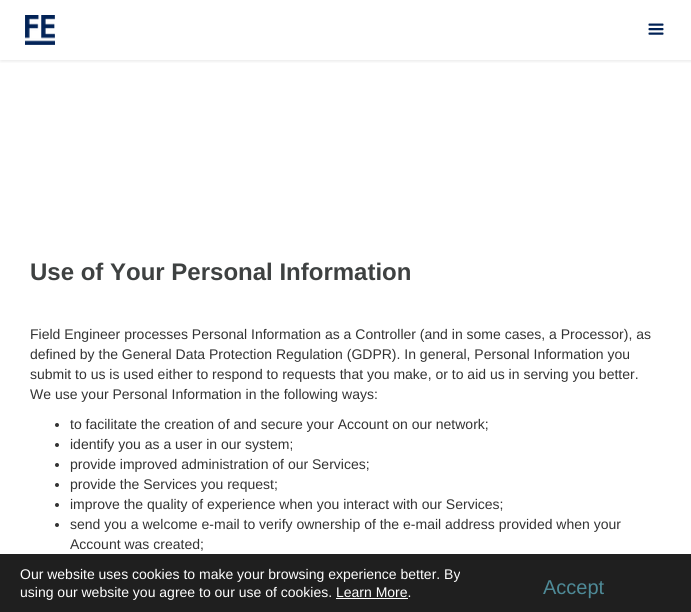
import math
import cairo



def rounded_rect(context, x, y, w, h, r):
    context.new_sub_path()
    for i, (u, v) in enumerate([(x + w - r, y + h - r), (x + r, y + h - r), (x + r, y + r), (x + w - r, y + r)]):
        context.arc(u, v, r, i * math.pi / 2, (i + 1) * math.pi / 2)
    context.close_path()


def draw_shadow(context, x, y, w, h, r, blur, alpha):
    context.push_group_with_content(cairo.Content.ALPHA)
    context.set_operator(cairo.Operator.SOURCE)
    for i in range(15, -16, -2):
        e = blur * i / 6
        if min(w, h) + 2 * e > 0:
            context.set_source_rgba(0, 0, 0, alpha * math.erfc((i - 1) / 8.5) / 2)
            rounded_rect(context, x - e, y - e, w + 2 * e, h + 2 * e, max(0, min(r + e + blur * .6, min(w, h) / 2 + e)))
            context.fill()
    context.mask(context.pop_group())


def draw_image(context, path, x, y, w, h):
    context.save()
    context.set_source_surface(cairo.ImageSurface.create_from_png(path), x, y)
    context.rectangle(x, y, w, h)
    context.fill()
    context.restore()


def draw(context):
    context.set_source_rgb(1, 1, 1)
    context.paint()
    context.save()
    context.rectangle(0, 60, 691, 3)
    context.clip()
    context.set_source_rgb(0, 0, 0)
    draw_shadow(context, 1, 1, 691, 60, 0, 2, 0.1)
    context.restore()
    draw_image(context, "images/1.png", 25, 15, 30, 30)
    draw_image(context, "images/2.png", 648, 23, 16, 12)
    context.set_source_rgb(51 / 255, 51 / 255, 51 / 255)
    context.arc(57, 425, 2, 0, 2 * math.pi)
    context.fill()
    context.arc(57, 445, 2, 0, 2 * math.pi)
    context.fill()
    context.arc(57, 465, 2, 0, 2 * math.pi)
    context.fill()
    context.arc(57, 485, 2, 0, 2 * math.pi)
    context.fill()
    context.arc(57, 505, 2, 0, 2 * math.pi)
    context.fill()
    context.arc(57, 525, 2, 0, 2 * math.pi)
    context.fill()
    context.set_source_rgb(31 / 255, 31 / 255, 31 / 255)
    context.rectangle(0, 554, 691, 58)
    context.fill()
    context.set_source_rgb(1, 1, 1)
    context.rectangle(336, 598, 72, 1)
    context.fill()
    context.select_font_face("Liberation Sans", cairo.FontSlant.NORMAL, cairo.FontWeight.BOLD)
    context.set_font_size(24)
    context.set_source_rgb(62 / 255, 65 / 255, 65 / 255)
    context.move_to(30, 280)
    context.show_text("Use of Your Personal Information")
    context.select_font_face("Liberation Sans")
    context.set_font_size(14)
    context.set_source_rgb(51 / 255, 51 / 255, 51 / 255)
    context.move_to(30, 339)
    context.show_text("Field Engineer processes Personal Information as a Controller (and in some cases, a Processor), as")
    context.move_to(30, 359)
    context.show_text("defined by the General Data Protection Regulation (GDPR). In general, Personal Information you")
    context.move_to(30, 379)
    context.show_text("submit to us is used either to respond to requests that you make, or to aid us in serving you better.")
    context.move_to(30, 399)
    context.show_text("We use your Personal Information in the following ways:")
    context.move_to(70, 429)
    context.show_text("to facilitate the creation of and secure your Account on our network;")
    context.move_to(70, 449)
    context.show_text("identify you as a user in our system;")
    context.move_to(70, 469)
    context.show_text("provide improved administration of our Services;")
    context.move_to(70, 489)
    context.show_text("provide the Services you request;")
    context.move_to(70, 509)
    context.show_text("improve the quality of experience when you interact with our Services;")
    context.move_to(70, 529)
    context.show_text("send you a welcome e-mail to verify ownership of the e-mail address provided when your")
    context.move_to(70, 549)
    context.show_text("Account was created;")
    context.set_source_rgb(1, 1, 1)
    context.move_to(20, 579)
    context.show_text("Our website uses cookies to make your browsing experience better. By")
    context.move_to(20, 597)
    context.show_text("using our website you agree to our use of cookies. Learn More.")
    context.set_font_size(20)
    context.set_source_rgb(78 / 255, 138 / 255, 151 / 255)
    context.move_to(543, 594)
    context.show_text("Accept")


surface = cairo.ImageSurface(cairo.Format.RGB24, 691, 612)
context = cairo.Context(surface)
options = cairo.FontOptions()
options.set_hint_metrics(cairo.HintMetrics.OFF)
options.set_hint_style(cairo.HintStyle.NONE)
context.set_font_options(options)
context.set_miter_limit(4)
draw(context)
surface.write_to_png("out.png")
